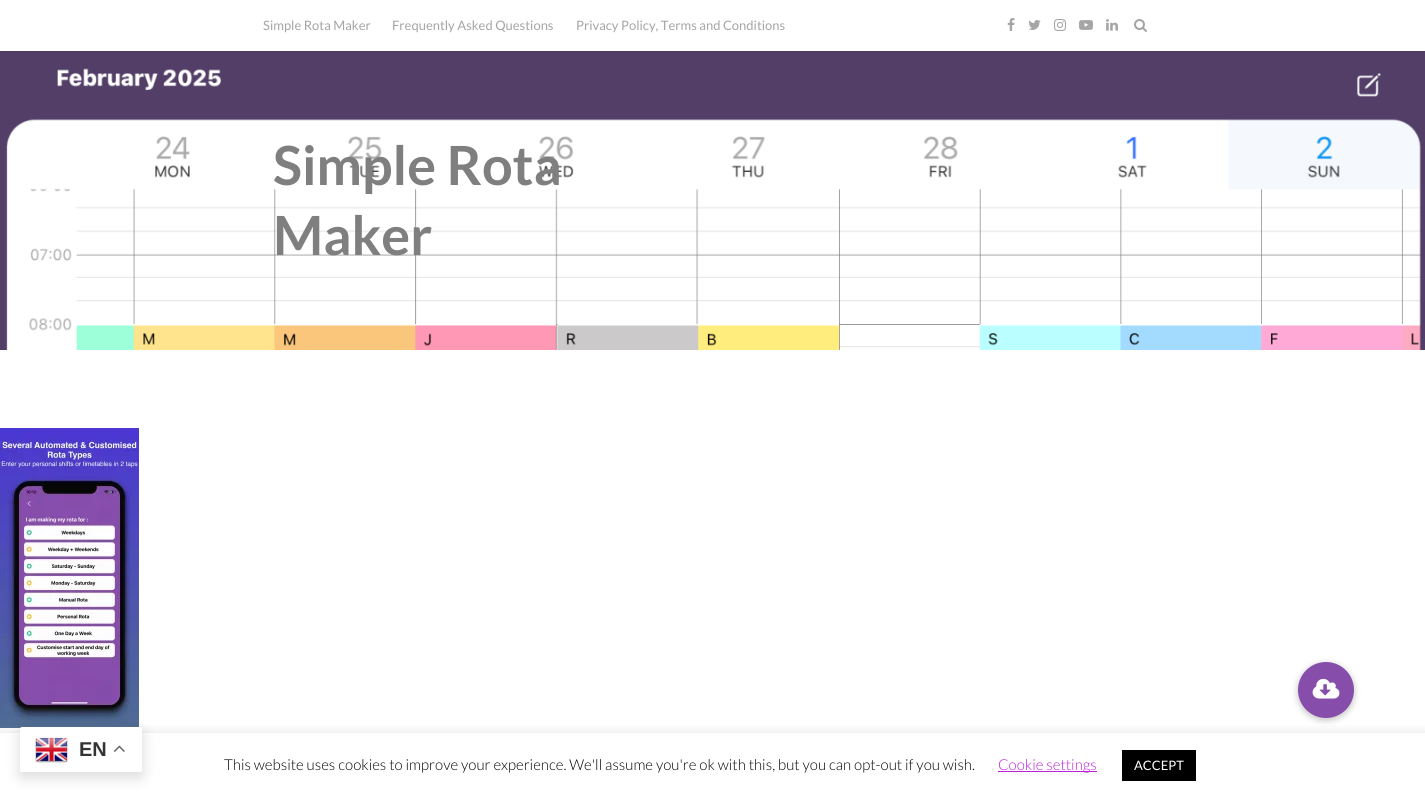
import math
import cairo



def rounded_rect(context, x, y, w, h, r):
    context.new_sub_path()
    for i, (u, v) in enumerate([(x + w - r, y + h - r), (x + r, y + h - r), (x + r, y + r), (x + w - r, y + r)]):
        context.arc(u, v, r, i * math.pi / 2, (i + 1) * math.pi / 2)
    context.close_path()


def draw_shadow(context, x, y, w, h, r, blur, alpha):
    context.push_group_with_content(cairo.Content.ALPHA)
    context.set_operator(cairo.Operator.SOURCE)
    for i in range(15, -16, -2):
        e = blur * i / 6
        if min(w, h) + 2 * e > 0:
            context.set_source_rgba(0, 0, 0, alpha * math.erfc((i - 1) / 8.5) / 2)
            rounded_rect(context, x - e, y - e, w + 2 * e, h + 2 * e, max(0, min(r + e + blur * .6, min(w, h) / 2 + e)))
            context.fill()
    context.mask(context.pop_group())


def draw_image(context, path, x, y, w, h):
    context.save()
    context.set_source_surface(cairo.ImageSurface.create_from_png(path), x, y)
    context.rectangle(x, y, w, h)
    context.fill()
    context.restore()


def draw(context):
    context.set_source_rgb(1, 1, 1)
    context.paint()
    draw_image(context, "images/1.png", 0, 51, 1425, 299)
    context.set_source_rgb(0, 0, 0)
    draw_shadow(context, 0, 0, 1425, 51, 0, 5, 0.05)
    context.set_source_rgb(1, 1, 1)
    context.rectangle(0, 0, 1425, 51)
    context.fill()
    draw_image(context, "images/2.png", 1007, 18, 8, 13)
    draw_image(context, "images/3.png", 1028, 20, 13, 10)
    draw_image(context, "images/4.png", 1054, 19, 12, 12)
    draw_image(context, "images/5.png", 1079, 20, 14, 10)
    draw_image(context, "images/6.png", 1106, 19, 12, 12)
    draw_image(context, "images/7.png", 1134, 19, 13, 13)
    draw_image(context, "images/8.png", 0, 428, 139, 300)
    context.set_source_rgb(0, 0, 0)
    draw_shadow(context, 1297, 663, 58, 58, 29, 3, 0.2)
    context.save()
    context.rectangle(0, 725, 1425, 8)
    context.clip()
    context.set_source_rgb(172 / 255, 171 / 255, 171 / 255)
    draw_shadow(context, 0, 732, 1425, 65, 0, 5, 0.3)
    context.restore()
    context.set_source_rgb(135 / 255, 77 / 255, 170 / 255)
    context.arc(1326, 690, 28, 0, 2 * math.pi)
    context.fill()
    draw_image(context, "images/9.png", 1312, 678, 28, 21)
    context.set_source_rgb(0, 0, 0)
    draw_shadow(context, 20, 732, 122, 45, 2, 7.5, 0.15)
    context.set_source_rgb(1, 1, 1)
    rounded_rect(context, 20, 727, 122, 45, 2)
    context.fill()
    draw_image(context, "images/10.png", 35, 737, 33, 26)
    draw_image(context, "images/11.png", 114, 745, 11, 7)
    context.set_source_rgb(189 / 255, 32 / 255, 216 / 255)
    context.rectangle(998, 771, 99, 1)
    context.fill()
    context.set_source_rgb(0, 0, 0)
    context.rectangle(1122, 750, 74, 31)
    context.fill()
    context.select_font_face("Lato")
    context.set_font_size(13)
    context.set_source_rgb(165 / 255, 165 / 255, 165 / 255)
    context.move_to(263, 30)
    context.show_text("Simple Rota Maker")
    context.move_to(392, 30)
    context.show_text("Frequently Asked Questions")
    context.move_to(576, 30)
    context.show_text("Privacy Policy, Terms and Conditions")
    context.select_font_face("Lato", cairo.FontSlant.NORMAL, cairo.FontWeight.BOLD)
    context.set_font_size(54)
    context.set_source_rgb(127 / 255, 127 / 255, 127 / 255)
    context.move_to(273, 185)
    context.show_text("Simple Rota")
    context.move_to(273, 255)
    context.show_text("Maker")
    context.select_font_face("Liberation Sans", cairo.FontSlant.NORMAL, cairo.FontWeight.BOLD)
    context.set_font_size(20)
    context.set_source_rgb(51 / 255, 51 / 255, 51 / 255)
    context.move_to(79, 756)
    context.show_text("EN")
    context.select_font_face("Lato Light")
    context.set_font_size(15)
    context.set_source_rgb(0, 0, 0)
    context.move_to(224, 770)
    context.show_text("This website uses cookies to improve your experience. We'll assume you're ok with this, but you can opt-out if you wish.")
    context.set_source_rgb(189 / 255, 32 / 255, 216 / 255)
    context.move_to(998, 770)
    context.show_text("Cookie settings")
    context.select_font_face("Lato")
    context.set_font_size(13)
    context.set_source_rgb(1, 1, 1)
    context.move_to(1134, 770)
    context.show_text("ACCEPT")


surface = cairo.ImageSurface(cairo.Format.RGB24, 1425, 798)
context = cairo.Context(surface)
options = cairo.FontOptions()
options.set_hint_metrics(cairo.HintMetrics.OFF)
options.set_hint_style(cairo.HintStyle.NONE)
context.set_font_options(options)
context.set_miter_limit(4)
draw(context)
surface.write_to_png("out.png")
